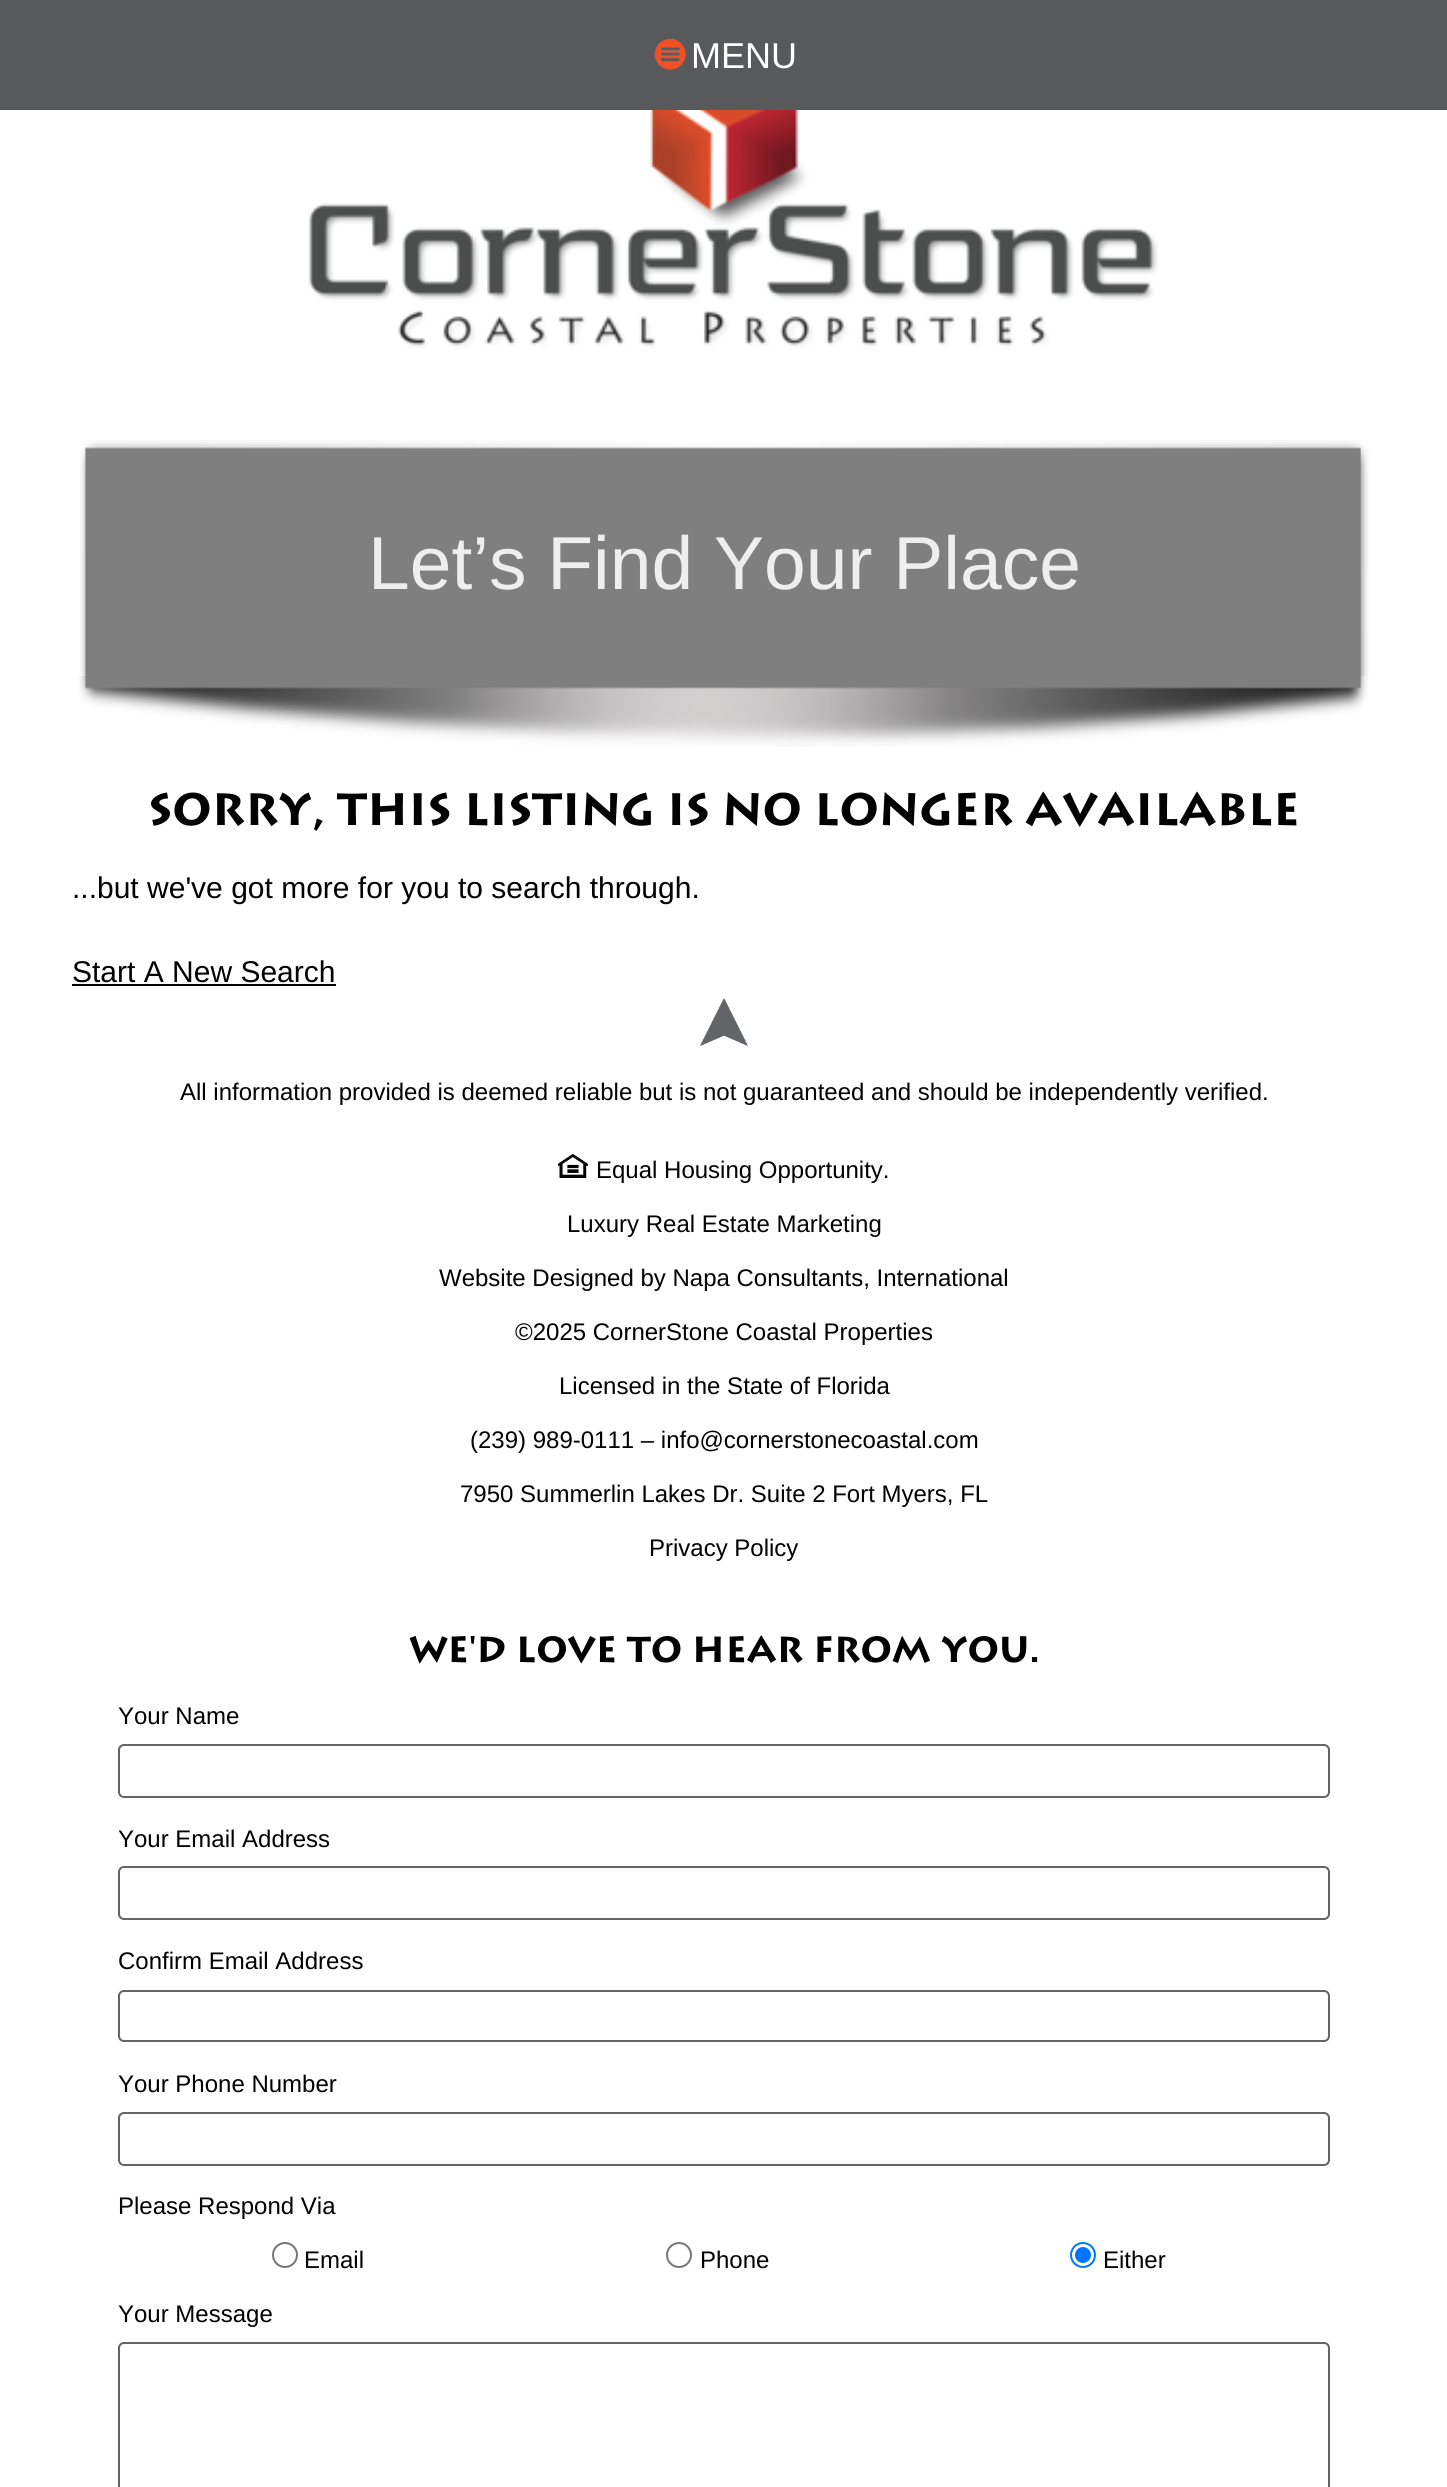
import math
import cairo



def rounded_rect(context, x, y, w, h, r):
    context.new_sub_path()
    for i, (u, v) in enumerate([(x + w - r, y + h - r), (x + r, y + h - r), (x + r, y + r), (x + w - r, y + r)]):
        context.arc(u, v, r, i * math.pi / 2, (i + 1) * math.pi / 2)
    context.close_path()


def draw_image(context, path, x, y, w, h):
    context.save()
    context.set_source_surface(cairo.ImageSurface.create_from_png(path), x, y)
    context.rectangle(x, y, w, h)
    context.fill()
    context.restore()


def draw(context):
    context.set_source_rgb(1, 1, 1)
    context.paint()
    context.set_source_rgb(88 / 255, 89 / 255, 91 / 255)
    context.rectangle(0, 0, 1447, 110)
    context.fill()
    draw_image(context, "images/1.png", 654, 38, 32, 32)
    draw_image(context, "images/2.png", 309, 110, 849, 239)
    draw_image(context, "images/3.png", 80, 440, 1289, 30)
    draw_image(context, "images/4.png", 80, 470, 1289, 206)
    draw_image(context, "images/5.png", 79, 676, 1289, 71)
    context.set_source_rgb(0, 0, 0)
    context.rectangle(72, 984, 264, 2)
    context.fill()
    draw_image(context, "images/6.png", 700, 998, 48, 48)
    draw_image(context, "images/7.png", 558, 1154, 30, 24)
    rounded_rect(context, 119, 1745, 1210, 52, 5)
    context.set_source_rgb(99 / 255, 100 / 255, 103 / 255)
    context.stroke()
    rounded_rect(context, 119, 1867, 1210, 52, 5)
    context.stroke()
    rounded_rect(context, 119, 1991, 1210, 50, 5)
    context.stroke()
    rounded_rect(context, 119, 2113, 1210, 52, 5)
    context.stroke()
    context.arc(285, 2255, 12, 0, 2 * math.pi)
    context.set_source_rgb(118 / 255, 118 / 255, 118 / 255)
    context.stroke()
    context.arc(679, 2255, 12, 0, 2 * math.pi)
    context.stroke()
    context.arc(1083, 2255, 12, 0, 2 * math.pi)
    context.set_source_rgb(0, 117 / 255, 1)
    context.stroke()
    context.arc(1083, 2255, 8, 0, 2 * math.pi)
    context.fill()
    rounded_rect(context, 119, 2343, 1210, 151, 5)
    context.set_source_rgb(99 / 255, 100 / 255, 103 / 255)
    context.stroke()
    context.select_font_face("Liberation Sans")
    context.set_font_size(36)
    context.set_source_rgb(1, 1, 1)
    context.move_to(691, 68)
    context.show_text("MENU")
    context.set_font_size(75)
    context.set_source_rgb(238 / 255, 238 / 255, 238 / 255)
    context.move_to(368, 589)
    context.show_text("Let’s Find Your Place")
    context.select_font_face("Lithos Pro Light", cairo.FontSlant.NORMAL, cairo.FontWeight.BOLD)
    context.set_font_size(45)
    context.set_source_rgb(0, 0, 0)
    context.move_to(148, 825)
    context.show_text("SORRY, THIS LISTING IS NO LONGER AVAILABLE")
    context.select_font_face("Liberation Sans")
    context.set_font_size(30)
    context.move_to(72, 898)
    context.show_text("...but we've got more for you to search through.")
    context.move_to(72, 982)
    context.show_text("Start A New Search")
    context.set_font_size(24)
    context.move_to(180, 1100)
    context.show_text("All information provided is deemed reliable but is not guaranteed and should be independently verified.")
    context.move_to(596, 1178)
    context.show_text("Equal Housing Opportunity.")
    context.move_to(567, 1232)
    context.show_text("Luxury Real Estate Marketing")
    context.move_to(439, 1286)
    context.show_text("Website Designed by Napa Consultants, International")
    context.move_to(515, 1340)
    context.show_text("©2025 CornerStone Coastal Properties")
    context.move_to(559, 1394)
    context.show_text("Licensed in the State of Florida")
    context.move_to(470, 1448)
    context.show_text("(239) 989-0111 – info@cornerstonecoastal.com")
    context.move_to(460, 1502)
    context.show_text("7950 Summerlin Lakes Dr. Suite 2 Fort Myers, FL")
    context.move_to(649, 1556)
    context.show_text("Privacy Policy")
    context.select_font_face("Lithos Pro Light", cairo.FontSlant.NORMAL, cairo.FontWeight.BOLD)
    context.set_font_size(36)
    context.move_to(409, 1662)
    context.show_text("WE'D LOVE TO HEAR FROM YOU.")
    context.select_font_face("Liberation Sans")
    context.set_font_size(24)
    context.move_to(118, 1724)
    context.show_text("Your Name")
    context.move_to(118, 1847)
    context.show_text("Your Email Address")
    context.move_to(118, 1969)
    context.show_text("Confirm Email Address")
    context.move_to(118, 2092)
    context.show_text("Your Phone Number")
    context.move_to(118, 2214)
    context.show_text("Please Respond Via")
    context.move_to(304, 2268)
    context.show_text("Email")
    context.move_to(700, 2268)
    context.show_text("Phone")
    context.move_to(1103, 2268)
    context.show_text("Either")
    context.move_to(118, 2322)
    context.show_text("Your Message")


surface = cairo.ImageSurface(cairo.Format.RGB24, 1447, 2487)
context = cairo.Context(surface)
options = cairo.FontOptions()
options.set_hint_metrics(cairo.HintMetrics.OFF)
options.set_hint_style(cairo.HintStyle.NONE)
context.set_font_options(options)
context.set_miter_limit(4)
draw(context)
surface.write_to_png("out.png")
